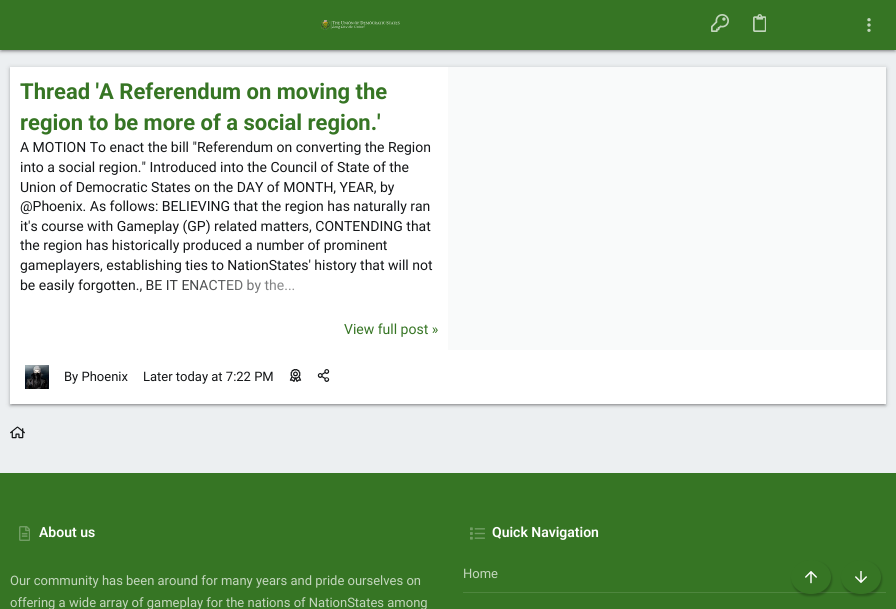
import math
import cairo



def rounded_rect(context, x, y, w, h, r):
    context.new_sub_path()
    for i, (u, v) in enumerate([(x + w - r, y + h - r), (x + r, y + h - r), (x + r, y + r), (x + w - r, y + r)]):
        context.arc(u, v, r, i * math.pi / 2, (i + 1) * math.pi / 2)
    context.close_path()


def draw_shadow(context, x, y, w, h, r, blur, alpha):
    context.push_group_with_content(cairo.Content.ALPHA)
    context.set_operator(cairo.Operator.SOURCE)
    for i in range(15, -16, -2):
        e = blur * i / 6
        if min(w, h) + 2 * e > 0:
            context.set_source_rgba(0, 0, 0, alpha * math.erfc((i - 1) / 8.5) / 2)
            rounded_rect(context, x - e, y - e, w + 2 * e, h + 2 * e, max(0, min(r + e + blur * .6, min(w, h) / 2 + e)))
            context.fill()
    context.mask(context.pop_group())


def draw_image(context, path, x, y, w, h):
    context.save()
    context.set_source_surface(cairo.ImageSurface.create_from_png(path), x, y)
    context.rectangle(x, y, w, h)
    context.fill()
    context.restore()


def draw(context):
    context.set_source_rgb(236 / 255, 239 / 255, 241 / 255)
    context.paint()
    context.set_source_rgb(0, 0, 0)
    draw_shadow(context, 0, 1, 896, 50, 0, 2.5, 0.2)
    draw_shadow(context, 2, 5, 892, 46, 0, 0.5, 0.12)
    draw_shadow(context, 0, 2, 896, 50, 0, 1, 0.14)
    context.set_source_rgb(54 / 255, 117 / 255, 36 / 255)
    context.rectangle(0, 0, 896, 50)
    context.fill()
    draw_image(context, "images/1.png", 320, 20, 80, 10)
    draw_image(context, "images/2.png", 711, 14, 18, 18)
    draw_image(context, "images/3.png", 753, 14, 13, 18)
    draw_image(context, "images/4.png", 867, 18, 4, 14)
    context.set_source_rgb(0, 0, 0)
    draw_shadow(context, 10, 68, 876, 337, 0, 2.5, 0.2)
    draw_shadow(context, 12, 72, 872, 333, 0, 0.5, 0.12)
    draw_shadow(context, 10, 69, 876, 337, 0, 1, 0.14)
    context.set_source_rgb(1, 1, 1)
    context.rectangle(10, 67, 876, 337)
    context.fill()
    context.set_source_rgb(249 / 255, 250 / 255, 250 / 255)
    context.rectangle(448, 67, 438, 283)
    context.fill()
    draw_image(context, "images/5.png", 25, 365, 24, 24)
    draw_image(context, "images/6.png", 289, 369, 13, 13)
    draw_image(context, "images/7.png", 317, 369, 13, 13)
    draw_image(context, "images/8.png", 10, 426, 15, 13)
    context.set_source_rgb(54 / 255, 117 / 255, 36 / 255)
    context.rectangle(0, 473, 896, 136)
    context.fill()
    draw_image(context, "images/9.png", 19, 526, 11, 15)
    draw_image(context, "images/10.png", 470, 527, 15, 13)
    context.set_source_rgb(78 / 255, 134 / 255, 62 / 255)
    context.rectangle(463, 592, 423, 1)
    context.fill()
    context.set_source_rgb(0, 0, 0)
    draw_shadow(context, 792, 562, 40, 34, 17, 1, 0.25)
    context.set_source_rgb(54 / 255, 117 / 255, 36 / 255)
    context.new_path()
    context.move_to(811, 560)
    context.curve_to(822, 560, 831, 567.5, 831, 577)
    context.curve_to(831, 586.5, 822, 594, 811, 594)
    context.curve_to(800, 594, 791, 586.5, 791, 577)
    context.curve_to(791, 567.5, 800, 560, 811, 560)
    context.close_path()
    context.fill()
    draw_image(context, "images/11.png", 805, 571, 12, 13)
    context.set_source_rgb(0, 0, 0)
    draw_shadow(context, 842, 562, 40, 34, 17, 1, 0.25)
    context.set_source_rgb(54 / 255, 117 / 255, 36 / 255)
    context.new_path()
    context.move_to(861, 560)
    context.curve_to(872, 560, 881, 567.5, 881, 577)
    context.curve_to(881, 586.5, 872, 594, 861, 594)
    context.curve_to(850, 594, 841, 586.5, 841, 577)
    context.curve_to(841, 567.5, 850, 560, 861, 560)
    context.close_path()
    context.fill()
    draw_image(context, "images/12.png", 855, 571, 12, 12)
    context.select_font_face("Roboto", cairo.FontSlant.NORMAL, cairo.FontWeight.BOLD)
    context.set_font_size(22)
    context.move_to(20, 99)
    context.show_text("Thread 'A Referendum on moving the")
    context.move_to(20, 130)
    context.show_text("region to be more of a social region.'")
    context.select_font_face("Roboto")
    context.set_font_size(14)
    context.set_source_rgb(20 / 255, 22 / 255, 24 / 255)
    context.move_to(20, 152)
    context.show_text("A MOTION To enact the bill \"Referendum on converting the Region")
    context.move_to(20, 172)
    context.show_text("into a social region.\" Introduced into the Council of State of the")
    context.move_to(20, 192)
    context.show_text("Union of Democratic States on the DAY of MONTH, YEAR, by")
    context.move_to(20, 211)
    context.show_text("@Phoenix. As follows: BELIEVING that the region has naturally ran")
    context.move_to(20, 231)
    context.show_text("it's course with Gameplay (GP) related matters, CONTENDING that")
    context.move_to(20, 250)
    context.show_text("the region has historically produced a number of prominent")
    context.move_to(20, 270)
    context.show_text("gameplayers, establishing ties to NationStates' history that will not")
    context.move_to(20, 290)
    context.show_text("be easily forgotten., BE IT ENACTED by the...")
    gradient = cairo.LinearGradient(125, 286, 438, 286)
    gradient.add_color_stop_rgba(0, 1, 1, 1, 0)
    gradient.add_color_stop_rgba(1, 1, 1, 1, 1)
    context.set_source(gradient)
    context.rectangle(132, 279, 163, 14)
    context.fill()
    context.set_source_rgb(54 / 255, 117 / 255, 36 / 255)
    context.move_to(344, 334)
    context.show_text("View full post »")
    context.set_font_size(13)
    context.set_source_rgb(20 / 255, 22 / 255, 24 / 255)
    context.move_to(64, 381)
    context.show_text("By Phoenix")
    context.move_to(143, 381)
    context.show_text("Later today at 7:22 PM")
    context.select_font_face("Roboto SemiBold")
    context.set_font_size(14)
    context.set_source_rgb(1, 1, 1)
    context.move_to(39, 537)
    context.show_text("About us")
    context.select_font_face("Roboto")
    context.set_font_size(13)
    context.set_source_rgb(195 / 255, 214 / 255, 189 / 255)
    context.move_to(10, 585)
    context.show_text("Our community has been around for many years and pride ourselves on")
    context.move_to(10, 607)
    context.show_text("offering a wide array of gameplay for the nations of NationStates among")
    context.select_font_face("Roboto SemiBold")
    context.set_font_size(14)
    context.set_source_rgb(1, 1, 1)
    context.move_to(492, 537)
    context.show_text("Quick Navigation")
    context.select_font_face("Roboto")
    context.set_font_size(13)
    context.set_source_rgb(195 / 255, 214 / 255, 189 / 255)
    context.move_to(463, 578)
    context.show_text("Home")


surface = cairo.ImageSurface(cairo.Format.RGB24, 896, 609)
context = cairo.Context(surface)
options = cairo.FontOptions()
options.set_hint_metrics(cairo.HintMetrics.OFF)
options.set_hint_style(cairo.HintStyle.NONE)
context.set_font_options(options)
context.set_miter_limit(4)
draw(context)
surface.write_to_png("out.png")
